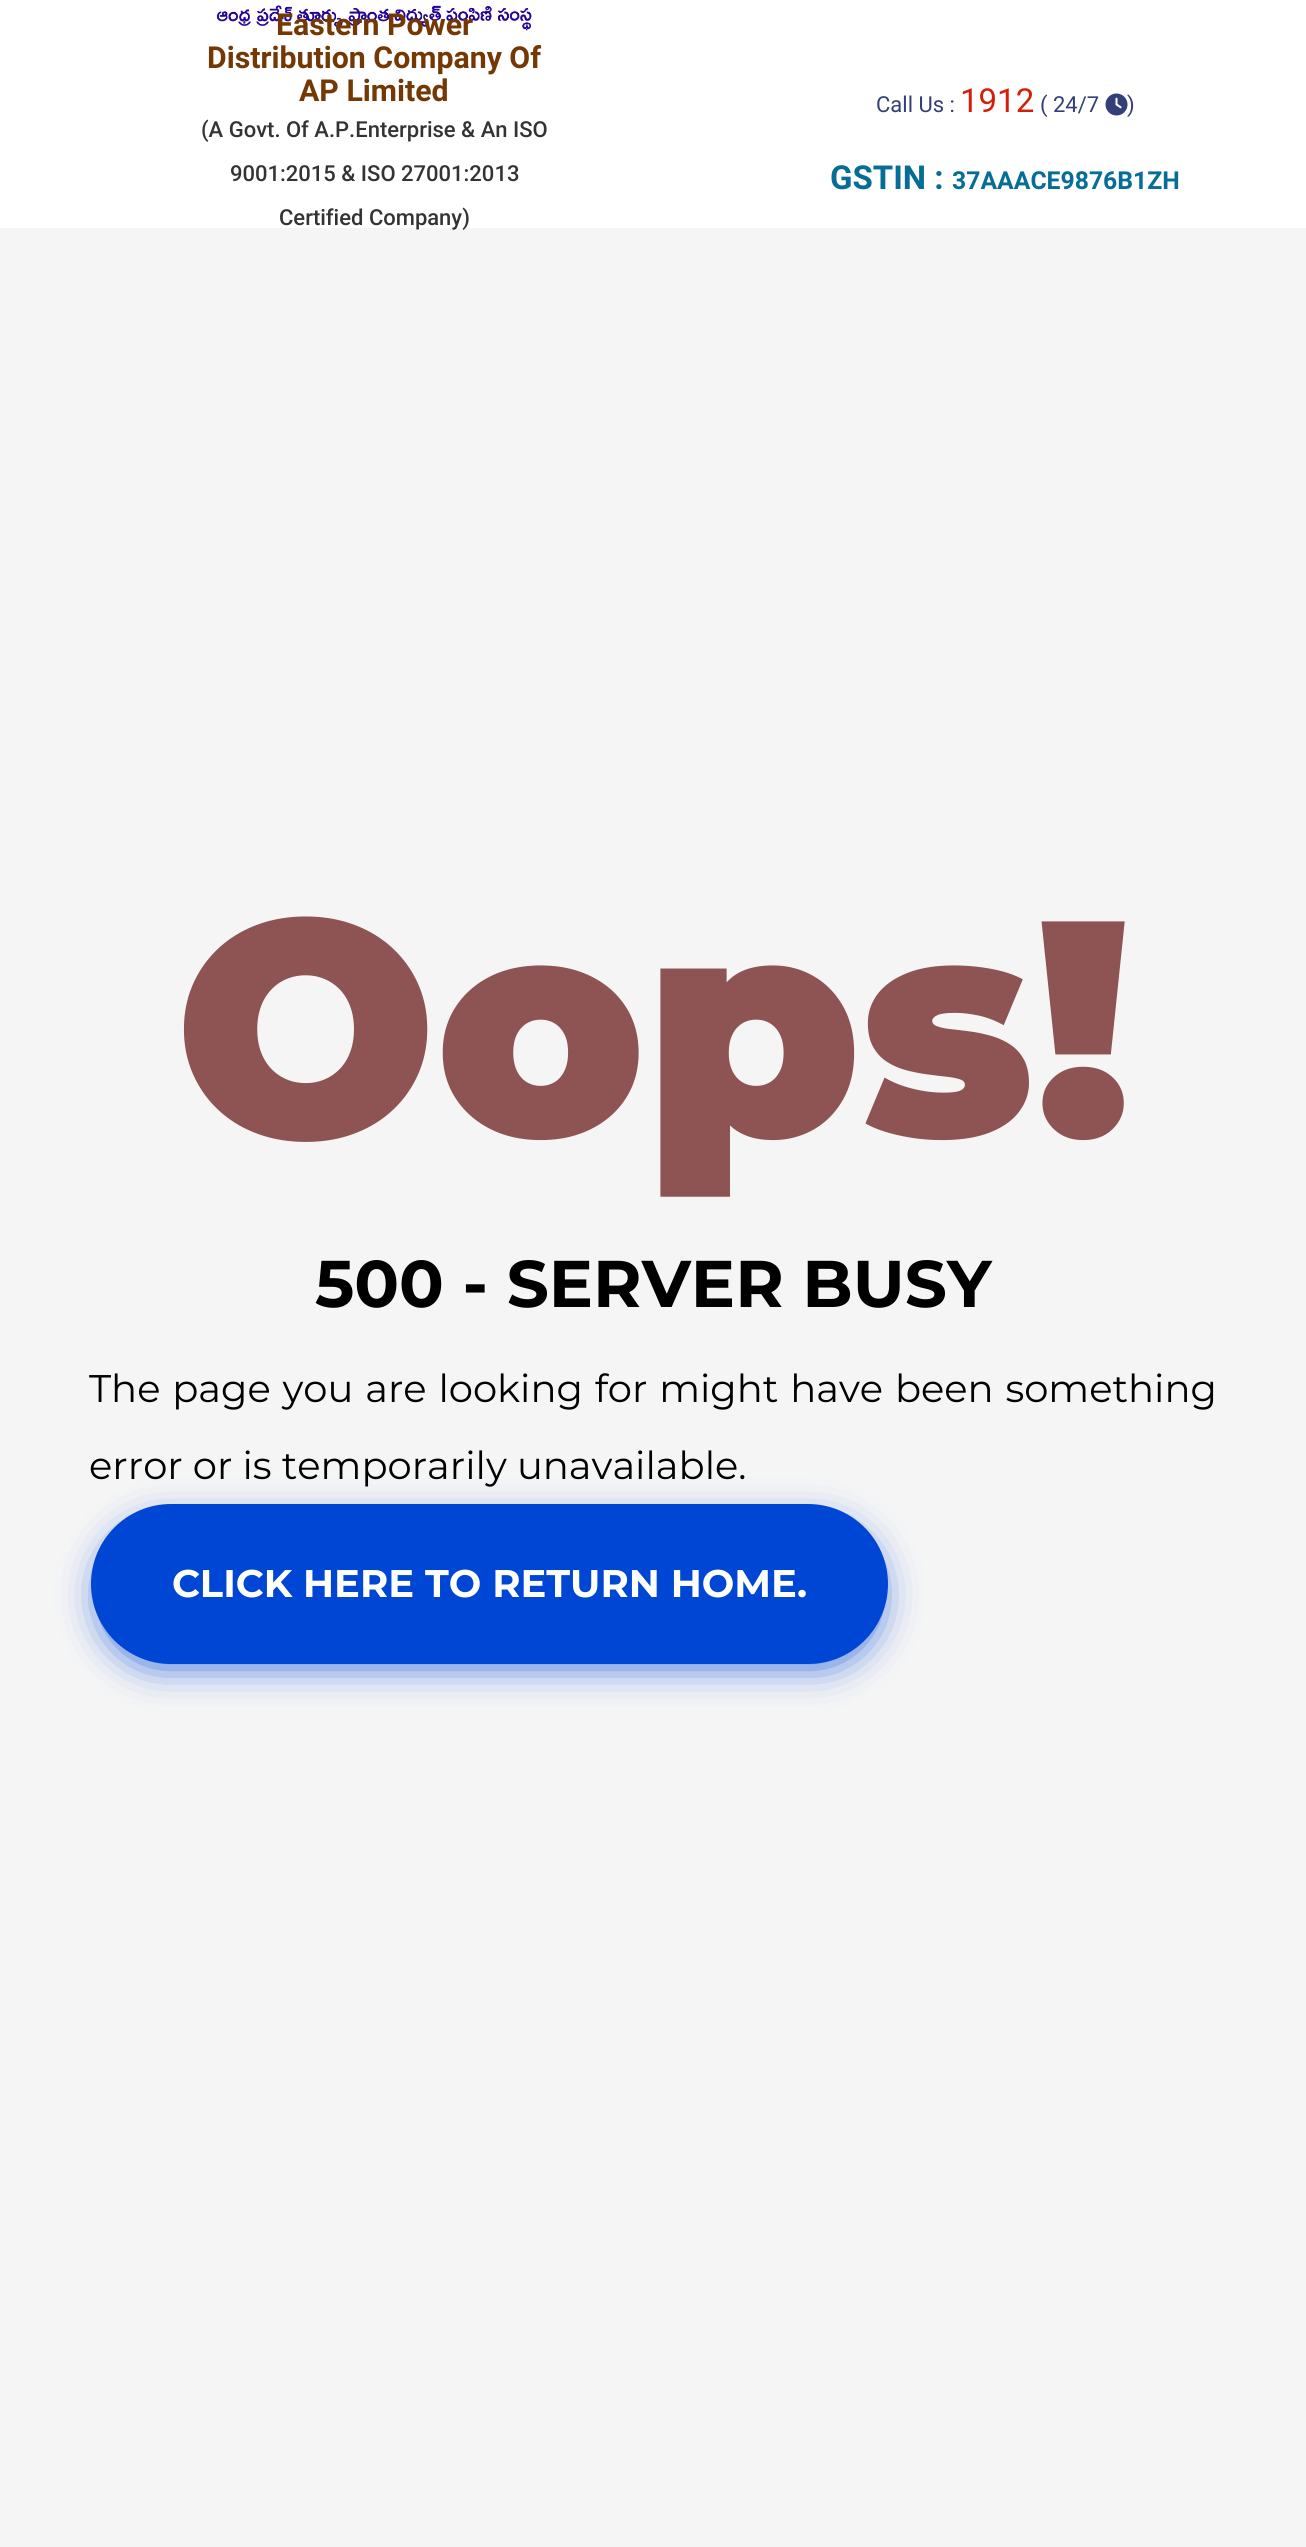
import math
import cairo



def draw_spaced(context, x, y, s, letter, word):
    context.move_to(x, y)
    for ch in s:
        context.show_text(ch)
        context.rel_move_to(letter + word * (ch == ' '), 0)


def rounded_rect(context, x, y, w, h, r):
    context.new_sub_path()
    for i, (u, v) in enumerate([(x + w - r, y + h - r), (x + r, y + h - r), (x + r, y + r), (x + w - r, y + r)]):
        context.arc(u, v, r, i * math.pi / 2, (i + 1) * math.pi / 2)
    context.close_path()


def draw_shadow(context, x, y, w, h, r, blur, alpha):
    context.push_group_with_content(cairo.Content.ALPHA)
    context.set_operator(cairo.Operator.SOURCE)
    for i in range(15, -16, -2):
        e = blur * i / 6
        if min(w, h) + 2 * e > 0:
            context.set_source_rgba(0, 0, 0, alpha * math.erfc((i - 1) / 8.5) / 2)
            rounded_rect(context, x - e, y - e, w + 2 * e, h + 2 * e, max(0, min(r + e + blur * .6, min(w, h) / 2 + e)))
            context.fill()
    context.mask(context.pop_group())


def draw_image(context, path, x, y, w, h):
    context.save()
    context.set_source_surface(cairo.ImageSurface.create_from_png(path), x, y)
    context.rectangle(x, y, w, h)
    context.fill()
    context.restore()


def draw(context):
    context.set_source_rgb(245 / 255, 245 / 255, 245 / 255)
    context.paint()
    context.set_source_rgb(1, 1, 1)
    context.rectangle(0, 0, 1306, 228)
    context.fill()
    draw_image(context, "images/1.png", 216, 5, 316, 26)
    draw_image(context, "images/2.png", 1105, 93, 23, 23)
    context.set_source_rgb(0, 70 / 255, 213 / 255)
    draw_shadow(context, 105, 1529, 770, 132, 66, 20.5, 1)
    context.set_source_rgb(0, 70 / 255, 213 / 255)
    rounded_rect(context, 91, 1504, 797, 160, 80)
    context.fill()
    context.select_font_face("Roboto", cairo.FontSlant.NORMAL, cairo.FontWeight.BOLD)
    context.set_font_size(30.25)
    context.set_source_rgb(115 / 255, 56 / 255, 4 / 255)
    context.move_to(276, 35)
    context.show_text("Eastern Power")
    context.move_to(207, 68)
    context.show_text("Distribution Company Of")
    context.move_to(299, 101)
    context.show_text("AP Limited")
    context.select_font_face("Roboto Medium")
    context.set_font_size(22)
    context.set_source_rgb(51 / 255, 51 / 255, 51 / 255)
    context.move_to(201, 137)
    context.show_text("(A Govt. Of A.P.Enterprise & An ISO")
    context.move_to(230, 181)
    context.show_text("9001:2015 & ISO 27001:2013")
    context.move_to(279, 225)
    context.show_text("Certified Company)")
    context.select_font_face("Roboto")
    context.set_source_rgb(52 / 255, 63 / 255, 121 / 255)
    context.move_to(876, 112)
    context.show_text("Call Us :")
    context.set_font_size(33)
    context.set_source_rgb(214 / 255, 29 / 255, 9 / 255)
    context.move_to(960, 112)
    context.show_text("1912")
    context.set_font_size(22)
    context.set_source_rgb(52 / 255, 63 / 255, 121 / 255)
    context.move_to(1040, 112)
    context.show_text("( 24/7")
    context.move_to(1127, 112)
    context.show_text(")")
    context.select_font_face("Roboto", cairo.FontSlant.NORMAL, cairo.FontWeight.BOLD)
    context.set_font_size(33)
    context.set_source_rgb(6 / 255, 110 / 255, 150 / 255)
    context.move_to(830, 189)
    context.show_text("GSTIN :")
    context.set_font_size(24.75)
    context.move_to(952, 189)
    context.show_text("37AAACE9876B1ZH")
    context.select_font_face("Montserrat Black")
    context.set_font_size(308)
    context.set_source_rgb(142 / 255, 83 / 255, 83 / 255)
    context.move_to(175, 1137)
    context.show_text("Oops!")
    context.select_font_face("Montserrat", cairo.FontSlant.NORMAL, cairo.FontWeight.BOLD)
    context.set_font_size(66)
    context.set_source_rgb(0, 0, 0)
    context.move_to(315, 1307)
    context.show_text("500 - SERVER BUSY")
    context.select_font_face("Montserrat")
    context.set_font_size(38.5)
    draw_spaced(context, 89, 1402, "The page you are looking for might have been something", 0, 1.75)
    context.move_to(89, 1479)
    context.show_text("error or is temporarily unavailable.")
    context.select_font_face("Montserrat", cairo.FontSlant.NORMAL, cairo.FontWeight.BOLD)
    context.set_source_rgb(1, 1, 1)
    context.move_to(172, 1597)
    context.show_text("CLICK HERE TO RETURN HOME.")


surface = cairo.ImageSurface(cairo.Format.RGB24, 1306, 2547)
context = cairo.Context(surface)
options = cairo.FontOptions()
options.set_hint_metrics(cairo.HintMetrics.OFF)
options.set_hint_style(cairo.HintStyle.NONE)
context.set_font_options(options)
context.set_miter_limit(4)
draw(context)
surface.write_to_png("out.png")
